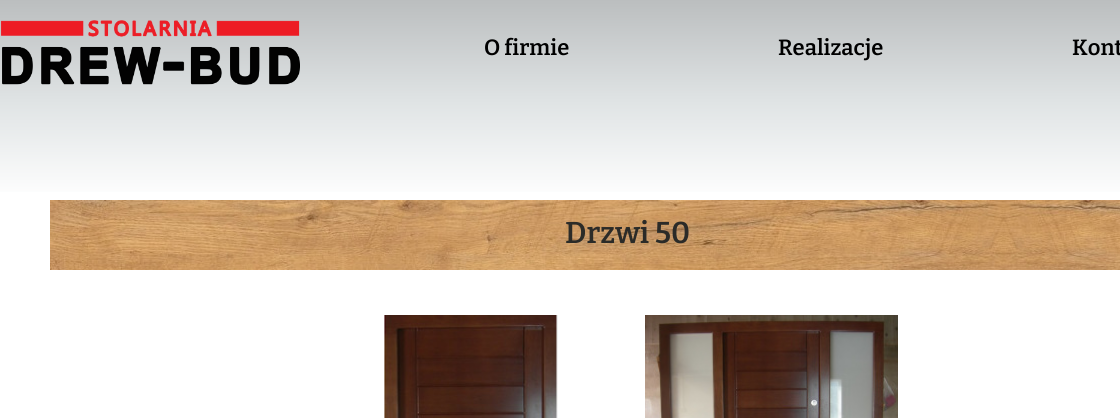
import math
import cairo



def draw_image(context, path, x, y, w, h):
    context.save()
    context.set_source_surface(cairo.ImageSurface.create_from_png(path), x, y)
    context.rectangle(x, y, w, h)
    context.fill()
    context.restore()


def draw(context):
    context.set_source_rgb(1, 1, 1)
    context.paint()
    gradient = cairo.LinearGradient(560, 0, 560, 100)
    gradient.add_color_stop_rgba(0, 187 / 255, 190 / 255, 191 / 255, 1)
    gradient.add_color_stop_rgba(1, 223 / 255, 227 / 255, 228 / 255, 1)
    context.set_source(gradient)
    context.rectangle(0, 0, 1120, 100)
    context.fill()
    draw_image(context, "images/1.png", 0, 20, 300, 65)
    gradient = cairo.LinearGradient(560, 100, 560, 200)
    gradient.add_color_stop_rgba(0, 223 / 255, 227 / 255, 228 / 255, 1)
    gradient.add_color_stop_rgba(1, 1, 1, 1, 1)
    context.set_source(gradient)
    context.rectangle(0, 100, 1120, 92)
    context.fill()
    draw_image(context, "images/2.png", 50, 200, 1070, 70)
    draw_image(context, "images/3.png", 384, 315, 174, 103)
    draw_image(context, "images/4.png", 645, 315, 253, 103)
    context.select_font_face("Bitter SemiBold")
    context.set_font_size(22)
    context.set_source_rgb(0, 0, 0)
    context.move_to(484, 55)
    context.show_text("O firmie")
    context.move_to(778, 55)
    context.show_text("Realizacje")
    context.move_to(1072, 55)
    context.show_text("Kont")
    context.set_font_size(30)
    context.set_source_rgb(43 / 255, 43 / 255, 40 / 255)
    context.move_to(565, 243)
    context.show_text("Drzwi 50")


surface = cairo.ImageSurface(cairo.Format.RGB24, 1120, 418)
context = cairo.Context(surface)
options = cairo.FontOptions()
options.set_hint_metrics(cairo.HintMetrics.OFF)
options.set_hint_style(cairo.HintStyle.NONE)
context.set_font_options(options)
context.set_miter_limit(4)
draw(context)
surface.write_to_png("out.png")
